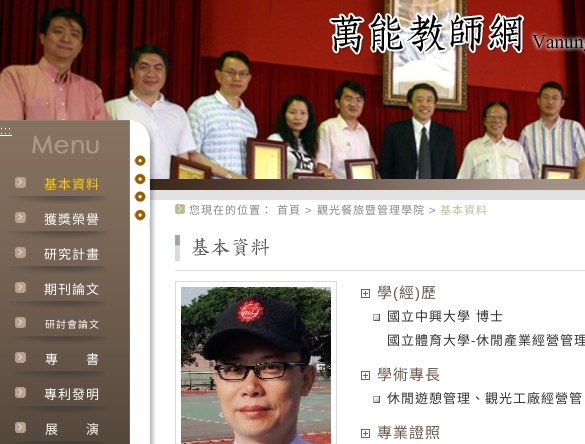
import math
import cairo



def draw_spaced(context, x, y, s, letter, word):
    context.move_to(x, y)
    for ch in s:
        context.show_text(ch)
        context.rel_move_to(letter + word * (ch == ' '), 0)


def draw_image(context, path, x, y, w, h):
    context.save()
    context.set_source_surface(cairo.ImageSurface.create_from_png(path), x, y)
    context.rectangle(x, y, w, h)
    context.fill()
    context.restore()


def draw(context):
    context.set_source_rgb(1, 1, 1)
    context.paint()
    draw_image(context, "images/1.png", 0, 0, 585, 200)
    draw_image(context, "images/2.png", 0, 120, 156, 324)
    context.set_source_rgb(1, 1, 1)
    context.rectangle(0, 135, 12, 1)
    context.fill()
    draw_image(context, "images/3.png", 9, 177, 99, 27)
    draw_image(context, "images/4.png", 9, 212, 99, 27)
    draw_image(context, "images/5.png", 10, 247, 97, 27)
    draw_image(context, "images/6.png", 10, 282, 97, 27)
    draw_image(context, "images/7.png", 11, 317, 95, 27)
    draw_image(context, "images/8.png", 12, 352, 94, 27)
    draw_image(context, "images/9.png", 15, 387, 91, 26)
    draw_image(context, "images/10.png", 15, 422, 89, 22)
    draw_image(context, "images/11.png", 175, 204, 10, 10)
    context.set_source_rgb(222 / 255, 219 / 255, 222 / 255)
    context.rectangle(175, 270, 410, 1)
    context.fill()
    draw_image(context, "images/12.png", 175, 235, 95, 26)
    context.rectangle(175.5, 281.5, 161, 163)
    context.set_line_width(1)
    context.stroke()
    draw_image(context, "images/13.png", 181, 287, 150, 157)
    draw_image(context, "images/14.png", 361, 289, 9, 9)
    draw_image(context, "images/15.png", 373, 314, 7, 7)
    draw_image(context, "images/14.png", 361, 371, 9, 9)
    draw_image(context, "images/15.png", 373, 396, 7, 7)
    draw_image(context, "images/14.png", 361, 429, 9, 9)
    context.select_font_face("Liberation Sans")
    context.set_font_size(11)
    context.set_source_rgb(1, 1, 1)
    draw_spaced(context, 0, 134, ":::", 1, 0)
    context.select_font_face("Noto Sans CJK TC")
    context.set_font_size(13)
    context.set_source_rgb(1, 204 / 255, 0)
    draw_spaced(context, 44, 189, "基本資料", 1, 0)
    context.set_source_rgb(1, 1, 1)
    draw_spaced(context, 44, 224, "獲獎榮譽", 1, 0)
    draw_spaced(context, 44, 259, "研究計畫", 1, 0)
    draw_spaced(context, 44, 294, "期刊論文", 1, 0)
    context.set_font_size(10)
    draw_spaced(context, 45, 328, "研討會論文", 1, 0)
    context.set_font_size(13)
    draw_spaced(context, 45, 364, "專", 1, 0)
    draw_spaced(context, 86, 364, "書", 1, 0)
    draw_spaced(context, 44, 399, "專利發明", 1, 0)
    draw_spaced(context, 45, 434, "展", 1, 0)
    draw_spaced(context, 86, 434, "演", 1, 0)
    context.set_font_size(11)
    context.set_source_rgb(134 / 255, 134 / 255, 134 / 255)
    draw_spaced(context, 189, 214, "您現在的位置：", 1, 0)
    draw_spaced(context, 277, 214, "首頁", 1, 0)
    context.select_font_face("Liberation Sans")
    draw_spaced(context, 305, 214, ">", 1, 0)
    context.select_font_face("Noto Sans CJK TC")
    draw_spaced(context, 317, 214, "觀光餐旅暨管理學院", 1, 0)
    context.select_font_face("Liberation Sans")
    draw_spaced(context, 429, 214, ">", 1, 0)
    context.select_font_face("Noto Sans CJK TC")
    context.set_source_rgb(189 / 255, 190 / 255, 148 / 255)
    draw_spaced(context, 440, 214, "基本資料", 1, 0)
    context.set_font_size(15)
    context.set_source_rgb(107 / 255, 89 / 255, 74 / 255)
    draw_spaced(context, 377, 298, "學", 1, 0)
    context.select_font_face("Liberation Sans")
    draw_spaced(context, 393, 298, "(", 1, 0)
    context.select_font_face("Noto Sans CJK TC")
    draw_spaced(context, 399, 298, "經", 1, 0)
    context.select_font_face("Liberation Sans")
    draw_spaced(context, 415, 298, ")", 1, 0)
    context.select_font_face("Noto Sans CJK TC")
    draw_spaced(context, 421, 298, "歷", 1, 0)
    context.set_font_size(13)
    context.set_source_rgb(51 / 255, 51 / 255, 51 / 255)
    draw_spaced(context, 387, 321, "國立中興大學", 1, 0)
    draw_spaced(context, 476, 321, "博士", 1, 0)
    draw_spaced(context, 387, 345, "國立體育大學", 1, 0)
    context.select_font_face("Liberation Sans")
    draw_spaced(context, 471, 345, "-", 1, 0)
    context.select_font_face("Noto Sans CJK TC")
    draw_spaced(context, 476, 345, "休閒產業經營管理", 1, 1)
    context.set_font_size(15)
    context.set_source_rgb(107 / 255, 89 / 255, 74 / 255)
    draw_spaced(context, 377, 380, "學術專長", 1, 0)
    context.set_font_size(13)
    context.set_source_rgb(51 / 255, 51 / 255, 51 / 255)
    draw_spaced(context, 387, 403, "休閒遊憩管理、觀光工廠經營管", 1, 0)
    context.set_font_size(15)
    context.set_source_rgb(107 / 255, 89 / 255, 74 / 255)
    draw_spaced(context, 377, 438, "專業證照", 1, 0)


surface = cairo.ImageSurface(cairo.Format.RGB24, 585, 444)
context = cairo.Context(surface)
options = cairo.FontOptions()
options.set_hint_metrics(cairo.HintMetrics.OFF)
options.set_hint_style(cairo.HintStyle.NONE)
context.set_font_options(options)
context.set_miter_limit(4)
draw(context)
surface.write_to_png("out.png")
